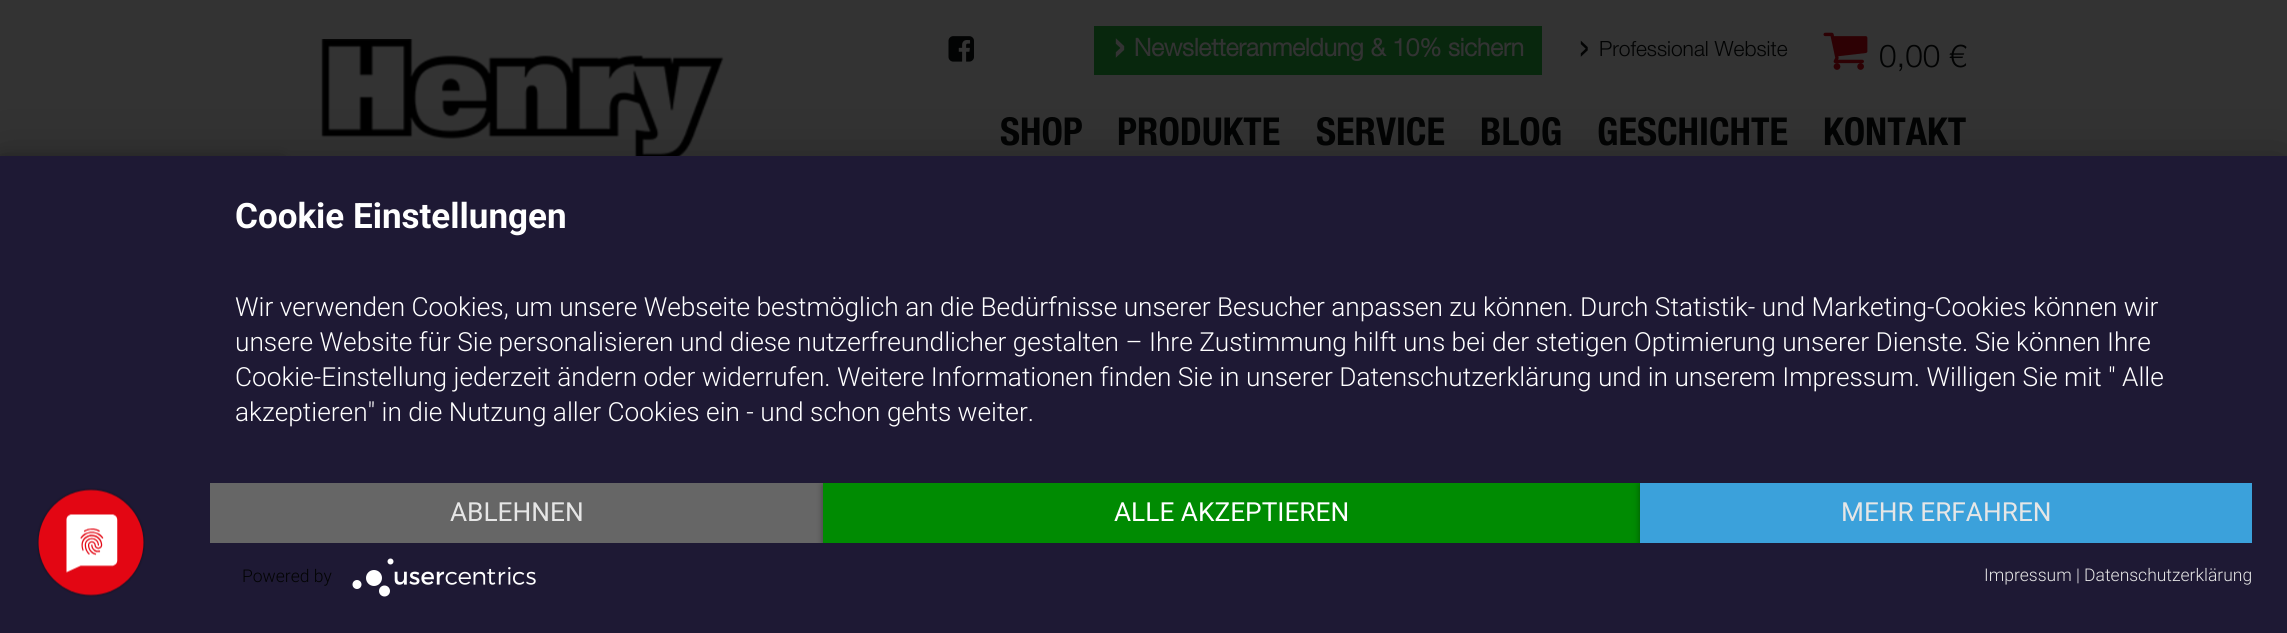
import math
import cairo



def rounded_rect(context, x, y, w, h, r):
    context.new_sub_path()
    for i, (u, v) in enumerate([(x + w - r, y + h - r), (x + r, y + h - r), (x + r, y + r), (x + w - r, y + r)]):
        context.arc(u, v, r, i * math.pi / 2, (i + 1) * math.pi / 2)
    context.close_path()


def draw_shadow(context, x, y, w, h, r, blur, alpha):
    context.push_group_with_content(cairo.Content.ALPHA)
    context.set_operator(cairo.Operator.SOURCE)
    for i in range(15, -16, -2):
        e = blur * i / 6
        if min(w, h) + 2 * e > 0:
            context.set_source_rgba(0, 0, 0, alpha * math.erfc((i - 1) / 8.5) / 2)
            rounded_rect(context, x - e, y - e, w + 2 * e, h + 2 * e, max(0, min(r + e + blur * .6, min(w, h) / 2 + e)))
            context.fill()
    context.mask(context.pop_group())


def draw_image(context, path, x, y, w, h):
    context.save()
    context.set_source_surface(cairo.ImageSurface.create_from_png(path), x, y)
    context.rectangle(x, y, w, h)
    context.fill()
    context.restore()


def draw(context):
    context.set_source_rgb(51 / 255, 51 / 255, 51 / 255)
    context.paint()
    draw_image(context, "images/1.png", 321, 39, 403, 117)
    draw_image(context, "images/2.png", 948, 36, 26, 26)
    context.set_source_rgb(8 / 255, 39 / 255, 13 / 255)
    context.rectangle(1094, 26, 448, 49)
    context.fill()
    draw_image(context, "images/3.png", 1823, 32, 45, 38)
    context.set_source_rgb(0, 0, 0)
    draw_shadow(context, 2, 163, 280, 297, 0, 9, 0.5)
    draw_shadow(context, 0, 166, 2287, 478, 0, 31.5, 0.3)
    context.set_source_rgb(30 / 255, 25 / 255, 52 / 255)
    context.rectangle(0, 156, 2287, 477)
    context.fill()
    draw_image(context, "images/4.png", 37, 488, 108, 109)
    context.set_source_rgb(102 / 255, 102 / 255, 102 / 255)
    context.rectangle(210, 483, 613, 60)
    context.fill()
    context.save()
    context.rectangle(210, 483, 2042, 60)
    context.clip()
    context.set_source_rgb(0, 0, 0)
    draw_shadow(context, 823, 485, 817, 59, 0, 3.5, 0.4)
    context.restore()
    context.set_source_rgb(0, 139 / 255, 2 / 255)
    context.rectangle(823, 483, 817, 60)
    context.fill()
    context.save()
    context.rectangle(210, 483, 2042, 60)
    context.clip()
    context.set_source_rgb(0, 0, 0)
    draw_shadow(context, 1640, 485, 612, 59, 0, 3.5, 0.4)
    context.restore()
    context.set_source_rgb(59 / 255, 161 / 255, 219 / 255)
    context.rectangle(1640, 483, 612, 60)
    context.fill()
    draw_image(context, "images/5.png", 352, 558, 184, 39)
    context.select_font_face("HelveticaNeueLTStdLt", cairo.FontSlant.NORMAL, cairo.FontWeight.BOLD)
    context.set_font_size(52)
    context.set_source_rgb(51 / 255, 51 / 255, 51 / 255)
    context.move_to(1112, 63)
    context.show_text("›")
    context.set_font_size(24.5)
    context.move_to(1134, 56)
    context.show_text("Newsletteranmeldung & 10% sichern")
    context.select_font_face("HelveticaNeueLTStdLt Light")
    context.set_font_size(52)
    context.set_source_rgb(2 / 255, 3 / 255, 3 / 255)
    context.move_to(1577, 63)
    context.show_text("›")
    context.set_font_size(21)
    context.move_to(1599, 56)
    context.show_text("Professional Website")
    context.set_font_size(31.5)
    context.move_to(1879, 67)
    context.show_text("0,00 €")
    context.select_font_face("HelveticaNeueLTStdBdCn")
    context.set_font_size(38.5)
    context.move_to(1000, 145)
    context.show_text("SHOP")
    context.move_to(1117, 145)
    context.show_text("PRODUKTE")
    context.move_to(1316, 145)
    context.show_text("SERVICE")
    context.move_to(1480, 145)
    context.show_text("BLOG")
    context.move_to(1597, 145)
    context.show_text("GESCHICHTE")
    context.move_to(1823, 145)
    context.show_text("KONTAKT")
    context.select_font_face("Roboto", cairo.FontSlant.NORMAL, cairo.FontWeight.BOLD)
    context.set_font_size(35)
    context.set_source_rgb(1, 1, 1)
    context.move_to(235, 228)
    context.show_text("Cookie Einstellungen")
    context.select_font_face("Roboto Light")
    context.set_font_size(26.25)
    context.move_to(235, 316)
    context.show_text("Wir verwenden Cookies, um unsere Webseite bestmöglich an die Bedürfnisse unserer Besucher anpassen zu können. Durch Statistik- und Marketing-Cookies können wir")
    context.move_to(235, 351)
    context.show_text("unsere Website für Sie personalisieren und diese nutzerfreundlicher gestalten – Ihre Zustimmung hilft uns bei der stetigen Optimierung unserer Dienste. Sie können Ihre")
    context.move_to(235, 386)
    context.show_text("Cookie-Einstellung jederzeit ändern oder widerrufen. Weitere Informationen finden Sie in unserer Datenschutzerklärung und in unserem Impressum. Willigen Sie mit \" Alle")
    context.move_to(235, 421)
    context.show_text("akzeptieren\" in die Nutzung aller Cookies ein - und schon gehts weiter.")
    context.select_font_face("Roboto")
    context.set_source_rgb(230 / 255, 230 / 255, 230 / 255)
    context.move_to(450, 521)
    context.show_text("ABLEHNEN")
    context.set_source_rgb(1, 1, 1)
    context.move_to(1114, 521)
    context.show_text("ALLE AKZEPTIEREN")
    context.set_source_rgb(230 / 255, 230 / 255, 230 / 255)
    context.move_to(1841, 521)
    context.show_text("MEHR ERFAHREN")
    context.select_font_face("Roboto Light")
    context.set_font_size(17.5)
    context.set_source_rgb(2 / 255, 3 / 255, 3 / 255)
    context.move_to(242, 582)
    context.show_text("Powered by")
    context.set_source_rgb(230 / 255, 230 / 255, 230 / 255)
    context.move_to(1984, 581)
    context.show_text("Impressum | Datenschutzerklärung")


surface = cairo.ImageSurface(cairo.Format.RGB24, 2287, 633)
context = cairo.Context(surface)
options = cairo.FontOptions()
options.set_hint_metrics(cairo.HintMetrics.OFF)
options.set_hint_style(cairo.HintStyle.NONE)
context.set_font_options(options)
context.set_miter_limit(4)
draw(context)
surface.write_to_png("out.png")
